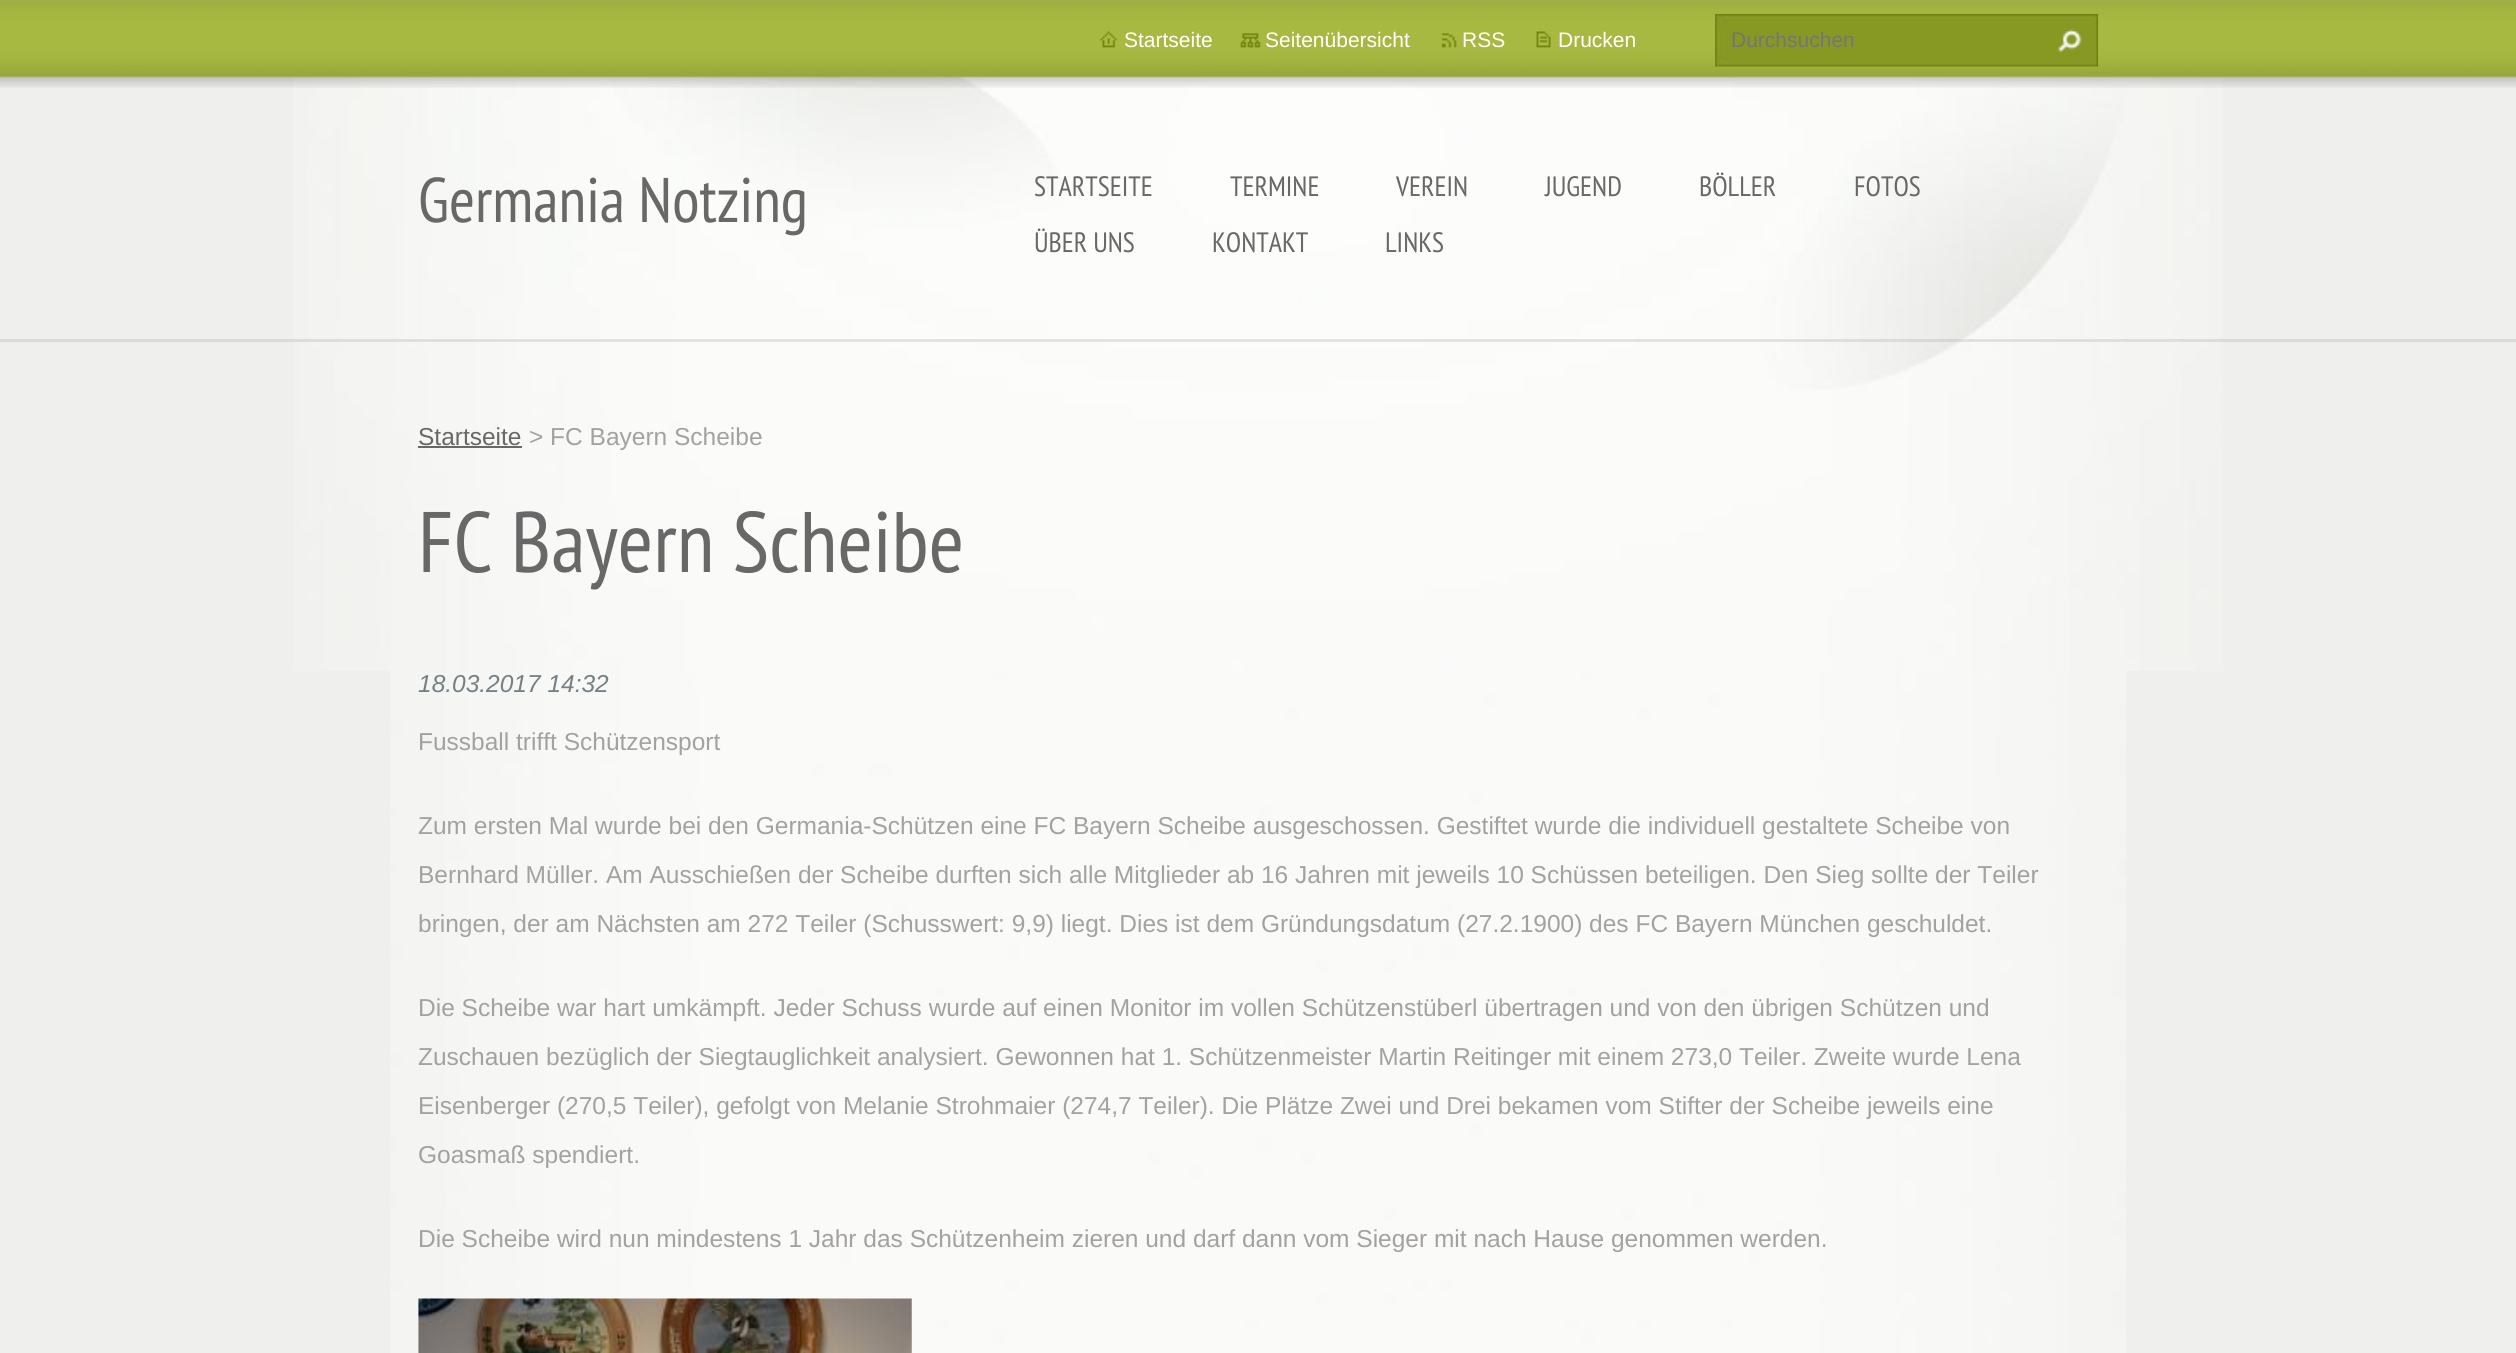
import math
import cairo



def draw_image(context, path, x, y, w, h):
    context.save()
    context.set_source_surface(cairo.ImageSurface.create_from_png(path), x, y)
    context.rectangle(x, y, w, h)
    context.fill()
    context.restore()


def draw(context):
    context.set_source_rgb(239 / 255, 239 / 255, 237 / 255)
    context.paint()
    draw_image(context, "images/1.png", 390, 671, 1736, 682)
    draw_image(context, "images/2.png", 293, 76, 1930, 595)
    context.set_source_rgba(158 / 255, 158 / 255, 158 / 255, 0.26)
    context.rectangle(0, 339, 2516, 3)
    context.fill()
    draw_image(context, "images/3.png", 0, 0, 2516, 88)
    draw_image(context, "images/4.png", 1100, 31, 17, 17)
    draw_image(context, "images/5.png", 1240, 33, 21, 15)
    draw_image(context, "images/6.png", 1441, 33, 16, 15)
    draw_image(context, "images/7.png", 1536, 31, 15, 17)
    draw_image(context, "images/8.png", 1715, 14, 384, 53)
    draw_image(context, "images/9.png", 2057, 29, 25, 24)
    context.set_source_rgb(104 / 255, 104 / 255, 104 / 255)
    context.rectangle(418, 446, 104, 2)
    context.fill()
    draw_image(context, "images/10.png", 418, 1298, 494, 55)
    context.select_font_face("Liberation Sans")
    context.set_font_size(21)
    context.set_source_rgb(1, 1, 1)
    context.move_to(1124, 47)
    context.show_text("Startseite")
    context.move_to(1265, 47)
    context.show_text("Seitenübersicht")
    context.move_to(1462, 47)
    context.show_text("RSS")
    context.move_to(1558, 47)
    context.show_text("Drucken")
    context.set_source_rgb(117 / 255, 117 / 255, 117 / 255)
    context.move_to(1731, 47)
    context.show_text("Durchsuchen")
    context.select_font_face("PT Sans Narrow")
    context.set_font_size(63)
    context.set_source_rgb(104 / 255, 104 / 255, 104 / 255)
    context.move_to(418, 222)
    context.show_text("Germania Notzing")
    context.set_font_size(28)
    context.move_to(1034, 196)
    context.show_text("STARTSEITE")
    context.move_to(1230, 196)
    context.show_text("TERMINE")
    context.move_to(1396, 196)
    context.show_text("VEREIN")
    context.move_to(1545, 196)
    context.show_text("JUGEND")
    context.move_to(1699, 196)
    context.show_text("BÖLLER")
    context.move_to(1854, 196)
    context.show_text("FOTOS")
    context.move_to(1034, 252)
    context.show_text("ÜBER UNS")
    context.move_to(1212, 252)
    context.show_text("KONTAKT")
    context.move_to(1385, 252)
    context.show_text("LINKS")
    context.select_font_face("Liberation Sans")
    context.set_font_size(24.5)
    context.move_to(418, 445)
    context.show_text("Startseite")
    context.set_source_rgb(163 / 255, 161 / 255, 161 / 255)
    context.move_to(529, 445)
    context.show_text("> FC Bayern Scheibe")
    context.select_font_face("PT Sans Narrow")
    context.set_font_size(85.75)
    context.set_source_rgb(104 / 255, 104 / 255, 104 / 255)
    context.move_to(418, 572)
    context.show_text("FC Bayern Scheibe")
    context.select_font_face("Liberation Sans", cairo.FontSlant.ITALIC)
    context.set_font_size(24.5)
    context.set_source_rgb(117 / 255, 128 / 255, 133 / 255)
    context.move_to(418, 692)
    context.show_text("18.03.2017 14:32")
    context.select_font_face("Liberation Sans")
    context.set_source_rgb(163 / 255, 161 / 255, 161 / 255)
    context.move_to(418, 750)
    context.show_text("Fussball trifft Schützensport")
    context.move_to(418, 834)
    context.show_text("Zum ersten Mal wurde bei den Germania-Schützen eine FC Bayern Scheibe ausgeschossen. Gestiftet wurde die individuell gestaltete Scheibe von")
    context.move_to(418, 883)
    context.show_text("Bernhard Müller. Am Ausschießen der Scheibe durften sich alle Mitglieder ab 16 Jahren mit jeweils 10 Schüssen beteiligen. Den Sieg sollte der Teiler")
    context.move_to(418, 932)
    context.show_text("bringen, der am Nächsten am 272 Teiler (Schusswert: 9,9) liegt. Dies ist dem Gründungsdatum (27.2.1900) des FC Bayern München geschuldet.")
    context.move_to(418, 1016)
    context.show_text("Die Scheibe war hart umkämpft. Jeder Schuss wurde auf einen Monitor im vollen Schützenstüberl übertragen und von den übrigen Schützen und")
    context.move_to(418, 1065)
    context.show_text("Zuschauen bezüglich der Siegtauglichkeit analysiert. Gewonnen hat 1. Schützenmeister Martin Reitinger mit einem 273,0 Teiler. Zweite wurde Lena")
    context.move_to(418, 1114)
    context.show_text("Eisenberger (270,5 Teiler), gefolgt von Melanie Strohmaier (274,7 Teiler). Die Plätze Zwei und Drei bekamen vom Stifter der Scheibe jeweils eine")
    context.move_to(418, 1163)
    context.show_text("Goasmaß spendiert.")
    context.move_to(418, 1247)
    context.show_text("Die Scheibe wird nun mindestens 1 Jahr das Schützenheim zieren und darf dann vom Sieger mit nach Hause genommen werden.")


surface = cairo.ImageSurface(cairo.Format.RGB24, 2516, 1353)
context = cairo.Context(surface)
options = cairo.FontOptions()
options.set_hint_metrics(cairo.HintMetrics.OFF)
options.set_hint_style(cairo.HintStyle.NONE)
context.set_font_options(options)
context.set_miter_limit(4)
draw(context)
surface.write_to_png("out.png")
